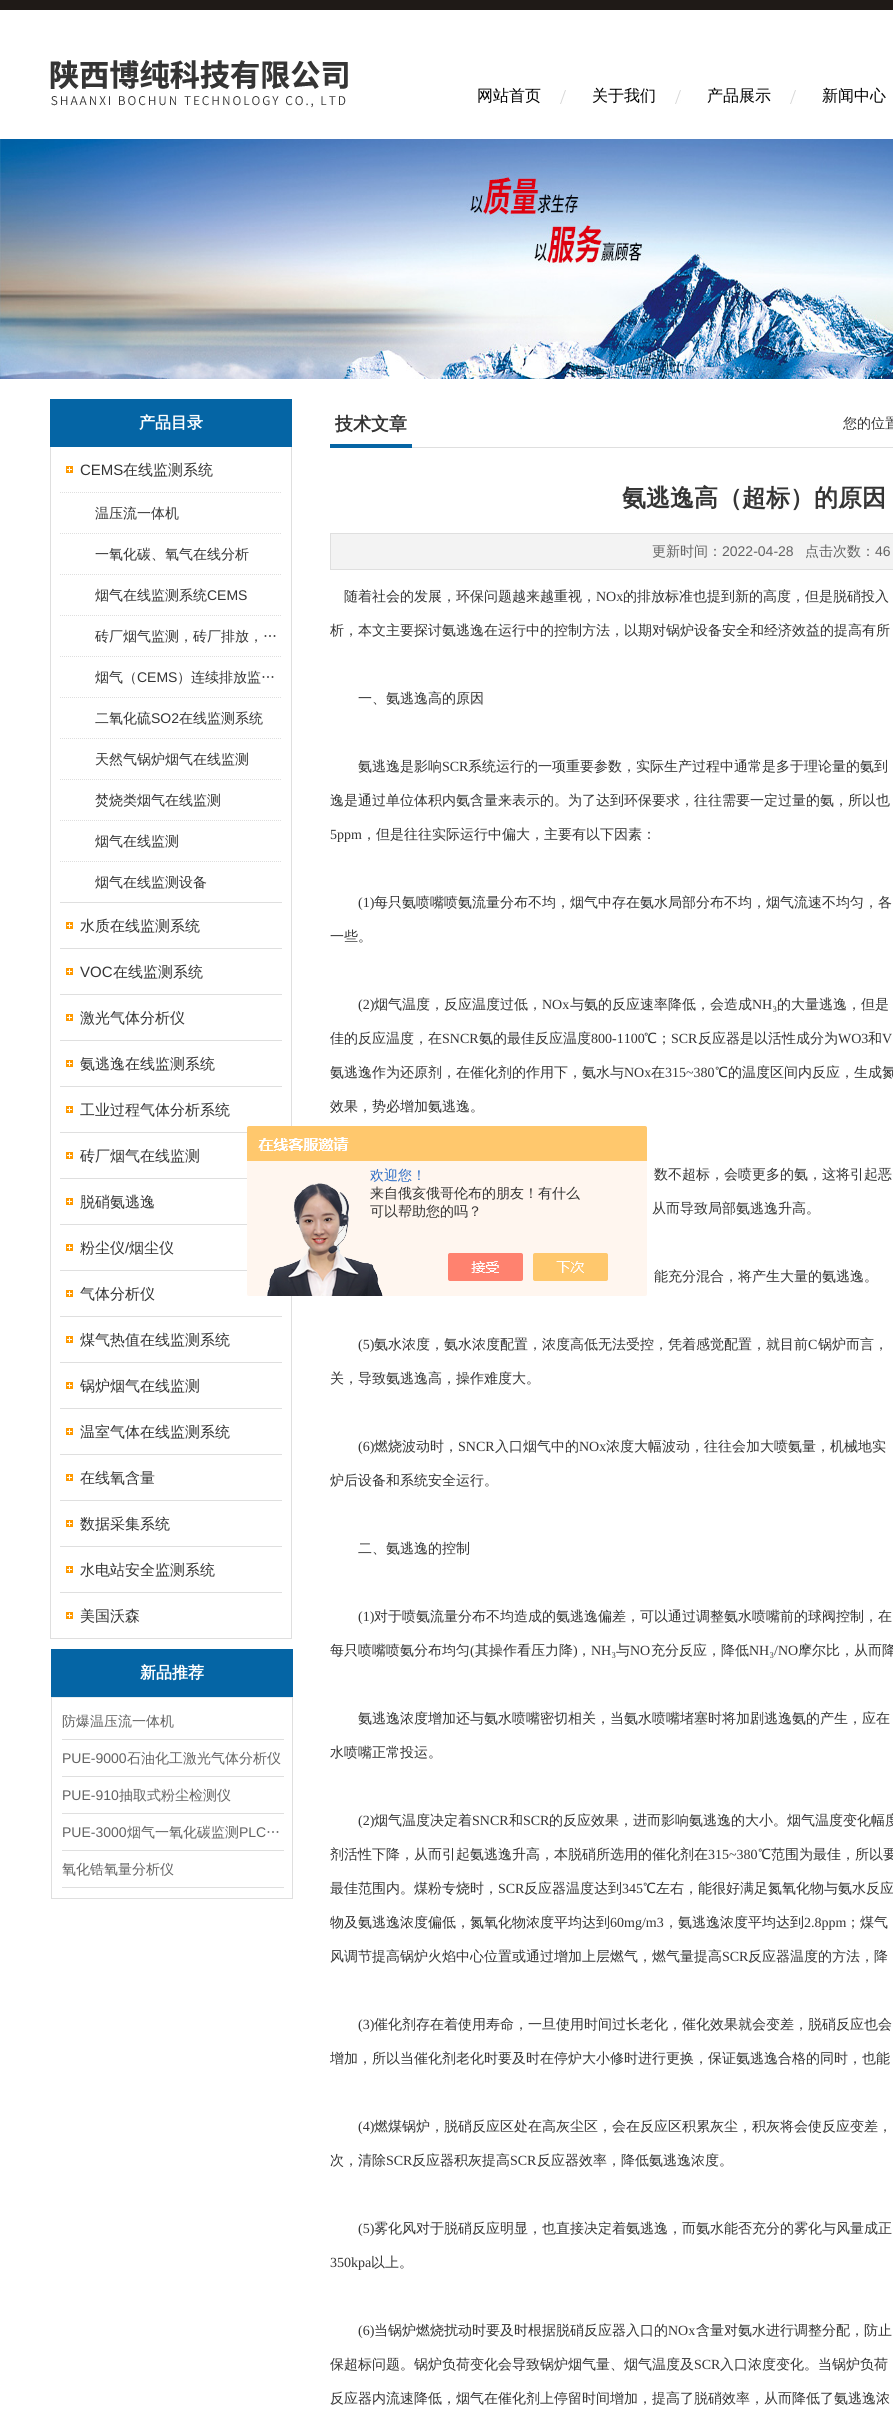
import math
import cairo



def draw_image(context, path, x, y, w, h):
    context.save()
    context.set_source_surface(cairo.ImageSurface.create_from_png(path), x, y)
    context.rectangle(x, y, w, h)
    context.fill()
    context.restore()


def draw(context):
    context.set_source_rgb(1, 1, 1)
    context.paint()
    context.set_source_rgb(31 / 255, 26 / 255, 23 / 255)
    context.rectangle(0, 0, 893, 10)
    context.fill()
    draw_image(context, "images/1.png", 50, 60, 298, 48)
    draw_image(context, "images/2.png", 560, 90, 6, 14)
    draw_image(context, "images/2.png", 675, 90, 6, 14)
    draw_image(context, "images/2.png", 790, 90, 6, 14)
    draw_image(context, "images/3.png", 0, 139, 893, 240)
    context.set_source_rgb(5 / 255, 101 / 255, 165 / 255)
    context.rectangle(50, 399, 242, 48)
    context.fill()
    context.set_source_rgb(223 / 255, 223 / 255, 223 / 255)
    context.rectangle(291, 447, 1, 1192)
    context.fill()
    context.rectangle(50, 1638, 242, 1)
    context.fill()
    context.rectangle(50, 447, 1, 1192)
    context.fill()
    context.rectangle(60, 902, 222, 1)
    context.fill()
    draw_image(context, "images/4.png", 66, 466, 7, 7)
    context.new_path()
    context.move_to(60, 492.5)
    context.line_to(282, 492.5)
    context.set_line_width(1)
    context.set_dash([1, 1])
    context.stroke()
    context.new_path()
    context.move_to(60, 533.5)
    context.line_to(282, 533.5)
    context.stroke()
    context.new_path()
    context.move_to(60, 574.5)
    context.line_to(282, 574.5)
    context.stroke()
    context.new_path()
    context.move_to(60, 615.5)
    context.line_to(282, 615.5)
    context.stroke()
    context.new_path()
    context.move_to(60, 656.5)
    context.line_to(282, 656.5)
    context.stroke()
    context.new_path()
    context.move_to(60, 697.5)
    context.line_to(282, 697.5)
    context.stroke()
    context.new_path()
    context.move_to(60, 738.5)
    context.line_to(282, 738.5)
    context.stroke()
    context.new_path()
    context.move_to(60, 779.5)
    context.line_to(282, 779.5)
    context.stroke()
    context.new_path()
    context.move_to(60, 820.5)
    context.line_to(282, 820.5)
    context.stroke()
    context.new_path()
    context.move_to(60, 861.5)
    context.line_to(282, 861.5)
    context.stroke()
    context.rectangle(60, 948, 222, 1)
    context.fill()
    draw_image(context, "images/4.png", 66, 922, 7, 7)
    context.rectangle(60, 994, 222, 1)
    context.fill()
    draw_image(context, "images/4.png", 66, 968, 7, 7)
    context.rectangle(60, 1040, 222, 1)
    context.fill()
    draw_image(context, "images/4.png", 66, 1014, 7, 7)
    context.rectangle(60, 1086, 222, 1)
    context.fill()
    draw_image(context, "images/4.png", 66, 1060, 7, 7)
    context.rectangle(60, 1132, 187, 1)
    context.fill()
    draw_image(context, "images/4.png", 66, 1106, 7, 7)
    context.rectangle(60, 1178, 187, 1)
    context.fill()
    draw_image(context, "images/4.png", 66, 1152, 7, 7)
    context.rectangle(60, 1224, 187, 1)
    context.fill()
    draw_image(context, "images/4.png", 66, 1198, 7, 7)
    context.rectangle(60, 1270, 187, 1)
    context.fill()
    draw_image(context, "images/4.png", 66, 1244, 7, 7)
    context.rectangle(60, 1316, 222, 1)
    context.fill()
    draw_image(context, "images/4.png", 66, 1290, 7, 7)
    context.rectangle(60, 1362, 222, 1)
    context.fill()
    draw_image(context, "images/4.png", 66, 1336, 7, 7)
    context.rectangle(60, 1408, 222, 1)
    context.fill()
    draw_image(context, "images/4.png", 66, 1382, 7, 7)
    context.rectangle(60, 1454, 222, 1)
    context.fill()
    draw_image(context, "images/4.png", 66, 1428, 7, 7)
    context.rectangle(60, 1500, 222, 1)
    context.fill()
    draw_image(context, "images/4.png", 66, 1474, 7, 7)
    context.rectangle(60, 1546, 222, 1)
    context.fill()
    draw_image(context, "images/4.png", 66, 1520, 7, 7)
    context.rectangle(60, 1592, 222, 1)
    context.fill()
    draw_image(context, "images/4.png", 66, 1566, 7, 7)
    draw_image(context, "images/4.png", 66, 1612, 7, 7)
    context.set_source_rgb(5 / 255, 101 / 255, 165 / 255)
    context.rectangle(51, 1649, 242, 48)
    context.fill()
    context.set_source_rgb(223 / 255, 223 / 255, 223 / 255)
    context.rectangle(292, 1697, 1, 202)
    context.fill()
    context.rectangle(51, 1898, 242, 1)
    context.fill()
    context.rectangle(51, 1697, 1, 202)
    context.fill()
    context.set_source_rgb(229 / 255, 237 / 255, 240 / 255)
    context.rectangle(52, 1697, 240, 1)
    context.fill()
    context.set_source_rgb(223 / 255, 223 / 255, 223 / 255)
    context.rectangle(62, 1739, 222, 1)
    context.fill()
    context.rectangle(62, 1776, 222, 1)
    context.fill()
    context.rectangle(62, 1813, 222, 1)
    context.fill()
    context.rectangle(62, 1850, 222, 1)
    context.fill()
    context.rectangle(62, 1887, 222, 1)
    context.fill()
    context.rectangle(412, 447, 481, 1)
    context.fill()
    context.set_source_rgb(6 / 255, 101 / 255, 165 / 255)
    context.rectangle(330, 444, 82, 4)
    context.fill()
    context.set_source_rgb(243 / 255, 243 / 255, 243 / 255)
    context.rectangle(330.5, 533.5, 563, 36)
    context.fill_preserve()
    context.set_source_rgb(223 / 255, 223 / 255, 223 / 255)
    context.set_dash([])
    context.stroke()
    draw_image(context, "images/5.png", 247, 1126, 400, 170)
    context.select_font_face("WenQuanYi Zen Hei Medium")
    context.set_font_size(16)
    context.set_source_rgb(1 / 255, 1 / 255, 1 / 255)
    context.move_to(477, 101)
    context.show_text("网站首页")
    context.move_to(592, 101)
    context.show_text("关于我们")
    context.move_to(707, 101)
    context.show_text("产品展示")
    context.move_to(822, 101)
    context.show_text("新闻中心")
    context.select_font_face("WenQuanYi Zen Hei", cairo.FontSlant.NORMAL, cairo.FontWeight.BOLD)
    context.set_source_rgb(1, 1, 1)
    context.move_to(139, 428)
    context.show_text("产品目录")
    context.select_font_face("Liberation Sans")
    context.set_font_size(15)
    context.set_source_rgb(52 / 255, 52 / 255, 52 / 255)
    context.move_to(80, 475)
    context.show_text("CEMS")
    context.select_font_face("WenQuanYi Zen Hei Medium")
    context.move_to(123, 475)
    context.show_text("在线监测系统")
    context.set_font_size(14)
    context.move_to(95, 518)
    context.show_text("温压流一体机")
    context.move_to(95, 559)
    context.show_text("一氧化碳、氧气在线分析")
    context.move_to(95, 600)
    context.show_text("烟气在线监测系统")
    context.select_font_face("Liberation Sans")
    context.move_to(207, 600)
    context.show_text("CEMS")
    context.select_font_face("WenQuanYi Zen Hei Medium")
    context.move_to(95, 641)
    context.show_text("砖厂烟气监测，砖厂排放，…")
    context.move_to(95, 682)
    context.show_text("烟气（")
    context.select_font_face("Liberation Sans")
    context.move_to(137, 682)
    context.show_text("CEMS")
    context.select_font_face("WenQuanYi Zen Hei Medium")
    context.move_to(177, 682)
    context.show_text("）连续排放监…")
    context.move_to(95, 723)
    context.show_text("二氧化硫")
    context.select_font_face("Liberation Sans")
    context.move_to(151, 723)
    context.show_text("SO2")
    context.select_font_face("WenQuanYi Zen Hei Medium")
    context.move_to(179, 723)
    context.show_text("在线监测系统")
    context.move_to(95, 764)
    context.show_text("天然气锅炉烟气在线监测")
    context.move_to(95, 805)
    context.show_text("焚烧类烟气在线监测")
    context.move_to(95, 846)
    context.show_text("烟气在线监测")
    context.move_to(95, 887)
    context.show_text("烟气在线监测设备")
    context.set_font_size(15)
    context.move_to(80, 931)
    context.show_text("水质在线监测系统")
    context.select_font_face("Liberation Sans")
    context.move_to(80, 977)
    context.show_text("VOC")
    context.select_font_face("WenQuanYi Zen Hei Medium")
    context.move_to(113, 977)
    context.show_text("在线监测系统")
    context.move_to(80, 1023)
    context.show_text("激光气体分析仪")
    context.move_to(80, 1069)
    context.show_text("氨逃逸在线监测系统")
    context.move_to(80, 1115)
    context.show_text("工业过程气体分析系统")
    context.move_to(80, 1161)
    context.show_text("砖厂烟气在线监测")
    context.move_to(80, 1207)
    context.show_text("脱硝氨逃逸")
    context.move_to(80, 1253)
    context.show_text("粉尘仪")
    context.select_font_face("Liberation Sans")
    context.move_to(125, 1253)
    context.show_text("/")
    context.select_font_face("WenQuanYi Zen Hei Medium")
    context.move_to(129, 1253)
    context.show_text("烟尘仪")
    context.move_to(80, 1299)
    context.show_text("气体分析仪")
    context.move_to(80, 1345)
    context.show_text("煤气热值在线监测系统")
    context.move_to(80, 1391)
    context.show_text("锅炉烟气在线监测")
    context.move_to(80, 1437)
    context.show_text("温室气体在线监测系统")
    context.move_to(80, 1483)
    context.show_text("在线氧含量")
    context.move_to(80, 1529)
    context.show_text("数据采集系统")
    context.move_to(80, 1575)
    context.show_text("水电站安全监测系统")
    context.move_to(80, 1621)
    context.show_text("美国沃森")
    context.select_font_face("WenQuanYi Zen Hei", cairo.FontSlant.NORMAL, cairo.FontWeight.BOLD)
    context.set_font_size(16)
    context.set_source_rgb(1, 1, 1)
    context.move_to(140, 1678)
    context.show_text("新品推荐")
    context.select_font_face("WenQuanYi Zen Hei Medium")
    context.set_font_size(14)
    context.set_source_rgb(99 / 255, 99 / 255, 99 / 255)
    context.move_to(62, 1726)
    context.show_text("防爆温压流一体机")
    context.select_font_face("Liberation Sans")
    context.move_to(62, 1763)
    context.show_text("PUE-9000")
    context.select_font_face("WenQuanYi Zen Hei Medium")
    context.move_to(127, 1763)
    context.show_text("石油化工激光气体分析仪")
    context.select_font_face("Liberation Sans")
    context.move_to(62, 1800)
    context.show_text("PUE-910")
    context.select_font_face("WenQuanYi Zen Hei Medium")
    context.move_to(119, 1800)
    context.show_text("抽取式粉尘检测仪")
    context.select_font_face("Liberation Sans")
    context.move_to(62, 1837)
    context.show_text("PUE-3000")
    context.select_font_face("WenQuanYi Zen Hei Medium")
    context.move_to(127, 1837)
    context.show_text("烟气一氧化碳监测")
    context.select_font_face("Liberation Sans")
    context.move_to(239, 1837)
    context.show_text("PLC")
    context.select_font_face("WenQuanYi Zen Hei Medium")
    context.move_to(266, 1837)
    context.show_text("…")
    context.move_to(62, 1874)
    context.show_text("氧化锆氧量分析仪")
    context.select_font_face("WenQuanYi Zen Hei", cairo.FontSlant.NORMAL, cairo.FontWeight.BOLD)
    context.set_font_size(18)
    context.set_source_rgb(52 / 255, 52 / 255, 52 / 255)
    context.move_to(335, 430)
    context.show_text("技术文章")
    context.select_font_face("WenQuanYi Zen Hei Medium")
    context.set_font_size(14)
    context.move_to(843, 428)
    context.show_text("您的位置")
    context.select_font_face("WenQuanYi Zen Hei", cairo.FontSlant.NORMAL, cairo.FontWeight.BOLD)
    context.set_font_size(24)
    context.move_to(622, 506)
    context.show_text("氨逃逸高（超标）的原因")
    context.select_font_face("WenQuanYi Zen Hei Medium")
    context.set_font_size(14)
    context.set_source_rgb(99 / 255, 99 / 255, 99 / 255)
    context.move_to(652, 556)
    context.show_text("更新时间：")
    context.select_font_face("Liberation Sans")
    context.move_to(722, 556)
    context.show_text("2022-04-28")
    context.select_font_face("WenQuanYi Zen Hei Medium")
    context.move_to(805, 556)
    context.show_text("点击次数：")
    context.select_font_face("Liberation Sans")
    context.move_to(875, 556)
    context.show_text("46")
    context.select_font_face("WenQuanYi Zen Hei Medium")
    context.set_source_rgb(52 / 255, 52 / 255, 52 / 255)
    context.move_to(344, 601)
    context.show_text("随着社会的发展，环保问题越来越重视，")
    context.select_font_face("Liberation Serif")
    context.move_to(596, 601)
    context.show_text("NOx")
    context.select_font_face("WenQuanYi Zen Hei Medium")
    context.move_to(623, 601)
    context.show_text("的排放标准也提到新的高度，但是脱硝投入")
    context.move_to(330, 635)
    context.show_text("析，本文主要探讨氨逃逸在运行中的控制方法，以期对锅炉设备安全和经济效益的提高有所")
    context.move_to(358, 703)
    context.show_text("一、氨逃逸高的原因")
    context.move_to(358, 771)
    context.show_text("氨逃逸是影响")
    context.select_font_face("Liberation Serif")
    context.move_to(442, 771)
    context.show_text("SCR")
    context.select_font_face("WenQuanYi Zen Hei Medium")
    context.move_to(468, 771)
    context.show_text("系统运行的一项重要参数，实际生产过程中通常是多于理论量的氨到")
    context.move_to(330, 805)
    context.show_text("逸是通过单位体积内氨含量来表示的。为了达到环保要求，往往需要一定过量的氨，所以也")
    context.select_font_face("Liberation Serif")
    context.move_to(330, 839)
    context.show_text("5ppm")
    context.select_font_face("WenQuanYi Zen Hei Medium")
    context.move_to(362, 839)
    context.show_text("，但是往往实际运行中偏大，主要有以下因素：")
    context.select_font_face("Liberation Serif")
    context.move_to(358, 907)
    context.show_text("(1)")
    context.select_font_face("WenQuanYi Zen Hei Medium")
    context.move_to(374, 907)
    context.show_text("每只氨喷嘴喷氨流量分布不均，烟气中存在氨水局部分布不均，烟气流速不均匀，各")
    context.move_to(330, 941)
    context.show_text("一些。")
    context.select_font_face("Liberation Serif")
    context.move_to(358, 1009)
    context.show_text("(2)")
    context.select_font_face("WenQuanYi Zen Hei Medium")
    context.move_to(374, 1009)
    context.show_text("烟气温度，反应温度过低，")
    context.select_font_face("Liberation Serif")
    context.move_to(542, 1009)
    context.show_text("NOx")
    context.select_font_face("WenQuanYi Zen Hei Medium")
    context.move_to(570, 1009)
    context.show_text("与氨的反应速率降低，会造成")
    context.select_font_face("Liberation Serif")
    context.move_to(752, 1009)
    context.show_text("NH₃")
    context.select_font_face("WenQuanYi Zen Hei Medium")
    context.move_to(777, 1009)
    context.show_text("的大量逃逸，但是")
    context.move_to(330, 1043)
    context.show_text("佳的反应温度，在")
    context.select_font_face("Liberation Serif")
    context.move_to(442, 1043)
    context.show_text("SNCR")
    context.select_font_face("WenQuanYi Zen Hei Medium")
    context.move_to(479, 1043)
    context.show_text("氨的最佳反应温度")
    context.select_font_face("Liberation Serif")
    context.move_to(591, 1043)
    context.show_text("800-1100")
    context.select_font_face("WenQuanYi Zen Hei Medium")
    context.move_to(644, 1043)
    context.show_text("℃；")
    context.select_font_face("Liberation Serif")
    context.move_to(671, 1043)
    context.show_text("SCR")
    context.select_font_face("WenQuanYi Zen Hei Medium")
    context.move_to(698, 1043)
    context.show_text("反应器是以活性成分为")
    context.select_font_face("Liberation Serif")
    context.move_to(838, 1043)
    context.show_text("WO3")
    context.select_font_face("WenQuanYi Zen Hei Medium")
    context.move_to(868, 1043)
    context.show_text("和")
    context.select_font_face("Liberation Serif")
    context.move_to(882, 1043)
    context.show_text("V")
    context.select_font_face("WenQuanYi Zen Hei Medium")
    context.move_to(330, 1077)
    context.show_text("氨逃逸作为还原剂，在催化剂的作用下，氨水与")
    context.select_font_face("Liberation Serif")
    context.move_to(624, 1077)
    context.show_text("NOx")
    context.select_font_face("WenQuanYi Zen Hei Medium")
    context.move_to(651, 1077)
    context.show_text("在")
    context.select_font_face("Liberation Serif")
    context.move_to(665, 1077)
    context.show_text("315~380")
    context.select_font_face("WenQuanYi Zen Hei Medium")
    context.move_to(715, 1077)
    context.show_text("℃的温度区间内反应，生成氮")
    context.move_to(330, 1111)
    context.show_text("效果，势必增加氨逃逸。")
    context.move_to(654, 1179)
    context.show_text("数不超标，会喷更多的氨，这将引起恶")
    context.move_to(652, 1213)
    context.show_text("从而导致局部氨逃逸升高。")
    context.move_to(654, 1281)
    context.show_text("能充分混合，将产生大量的氨逃逸。")
    context.select_font_face("Liberation Serif")
    context.move_to(358, 1349)
    context.show_text("(5)")
    context.select_font_face("WenQuanYi Zen Hei Medium")
    context.move_to(374, 1349)
    context.show_text("氨水浓度，氨水浓度配置，浓度高低无法受控，凭着感觉配置，就目前")
    context.select_font_face("Liberation Serif")
    context.move_to(808, 1349)
    context.show_text("C")
    context.select_font_face("WenQuanYi Zen Hei Medium")
    context.move_to(818, 1349)
    context.show_text("锅炉而言，")
    context.move_to(330, 1383)
    context.show_text("关，导致氨逃逸高，操作难度大。")
    context.select_font_face("Liberation Serif")
    context.move_to(358, 1451)
    context.show_text("(6)")
    context.select_font_face("WenQuanYi Zen Hei Medium")
    context.move_to(374, 1451)
    context.show_text("燃烧波动时，")
    context.select_font_face("Liberation Serif")
    context.move_to(458, 1451)
    context.show_text("SNCR")
    context.select_font_face("WenQuanYi Zen Hei Medium")
    context.move_to(495, 1451)
    context.show_text("入口烟气中的")
    context.select_font_face("Liberation Serif")
    context.move_to(579, 1451)
    context.show_text("NOx")
    context.select_font_face("WenQuanYi Zen Hei Medium")
    context.move_to(606, 1451)
    context.show_text("浓度大幅波动，往往会加大喷氨量，机械地实")
    context.move_to(330, 1485)
    context.show_text("炉后设备和系统安全运行。")
    context.move_to(358, 1553)
    context.show_text("二、氨逃逸的控制")
    context.select_font_face("Liberation Serif")
    context.move_to(358, 1621)
    context.show_text("(1)")
    context.select_font_face("WenQuanYi Zen Hei Medium")
    context.move_to(374, 1621)
    context.show_text("对于喷氨流量分布不均造成的氨逃逸偏差，可以通过调整氨水喷嘴前的球阀控制，在")
    context.move_to(330, 1655)
    context.show_text("每只喷嘴喷氨分布均匀")
    context.select_font_face("Liberation Serif")
    context.move_to(470, 1655)
    context.show_text("(")
    context.select_font_face("WenQuanYi Zen Hei Medium")
    context.move_to(475, 1655)
    context.show_text("其操作看压力降")
    context.select_font_face("Liberation Serif")
    context.move_to(573, 1655)
    context.show_text(")")
    context.select_font_face("WenQuanYi Zen Hei Medium")
    context.move_to(577, 1655)
    context.show_text("，")
    context.select_font_face("Liberation Serif")
    context.move_to(591, 1655)
    context.show_text("NH₃")
    context.select_font_face("WenQuanYi Zen Hei Medium")
    context.move_to(616, 1655)
    context.show_text("与")
    context.select_font_face("Liberation Serif")
    context.move_to(630, 1655)
    context.show_text("NO")
    context.select_font_face("WenQuanYi Zen Hei Medium")
    context.move_to(651, 1655)
    context.show_text("充分反应，降低")
    context.select_font_face("Liberation Serif")
    context.move_to(749, 1655)
    context.show_text("NH₃/NO")
    context.select_font_face("WenQuanYi Zen Hei Medium")
    context.move_to(798, 1655)
    context.show_text("摩尔比，从而降")
    context.move_to(358, 1723)
    context.show_text("氨逃逸浓度增加还与氨水喷嘴密切相关，当氨水喷嘴堵塞时将加剧逃逸氨的产生，应在")
    context.move_to(330, 1757)
    context.show_text("水喷嘴正常投运。")
    context.select_font_face("Liberation Serif")
    context.move_to(358, 1825)
    context.show_text("(2)")
    context.select_font_face("WenQuanYi Zen Hei Medium")
    context.move_to(374, 1825)
    context.show_text("烟气温度决定着")
    context.select_font_face("Liberation Serif")
    context.move_to(472, 1825)
    context.show_text("SNCR")
    context.select_font_face("WenQuanYi Zen Hei Medium")
    context.move_to(509, 1825)
    context.show_text("和")
    context.select_font_face("Liberation Serif")
    context.move_to(523, 1825)
    context.show_text("SCR")
    context.select_font_face("WenQuanYi Zen Hei Medium")
    context.move_to(549, 1825)
    context.show_text("的反应效果，进而影响氨逃逸的大小。烟气温度变化幅度")
    context.move_to(330, 1859)
    context.show_text("剂活性下降，从而引起氨逃逸升高，本脱硝所选用的催化剂在")
    context.select_font_face("Liberation Serif")
    context.move_to(708, 1859)
    context.show_text("315~380")
    context.select_font_face("WenQuanYi Zen Hei Medium")
    context.move_to(758, 1859)
    context.show_text("℃范围为最佳，所以要")
    context.move_to(330, 1893)
    context.show_text("最佳范围内。煤粉专烧时，")
    context.select_font_face("Liberation Serif")
    context.move_to(498, 1893)
    context.show_text("SCR")
    context.select_font_face("WenQuanYi Zen Hei Medium")
    context.move_to(524, 1893)
    context.show_text("反应器温度达到")
    context.select_font_face("Liberation Serif")
    context.move_to(622, 1893)
    context.show_text("345")
    context.select_font_face("WenQuanYi Zen Hei Medium")
    context.move_to(643, 1893)
    context.show_text("℃左右，能很好满足氮氧化物与氨水反应")
    context.move_to(330, 1927)
    context.show_text("物及氨逃逸浓度偏低，氮氧化物浓度平均达到")
    context.select_font_face("Liberation Serif")
    context.move_to(610, 1927)
    context.show_text("60mg/m3")
    context.select_font_face("WenQuanYi Zen Hei Medium")
    context.move_to(664, 1927)
    context.show_text("，氨逃逸浓度平均达到")
    context.select_font_face("Liberation Serif")
    context.move_to(804, 1927)
    context.show_text("2.8ppm")
    context.select_font_face("WenQuanYi Zen Hei Medium")
    context.move_to(846, 1927)
    context.show_text("；煤气")
    context.move_to(330, 1961)
    context.show_text("风调节提高锅炉火焰中心位置或通过增加上层燃气，燃气量提高")
    context.select_font_face("Liberation Serif")
    context.move_to(722, 1961)
    context.show_text("SCR")
    context.select_font_face("WenQuanYi Zen Hei Medium")
    context.move_to(748, 1961)
    context.show_text("反应器温度的方法，降")
    context.select_font_face("Liberation Serif")
    context.move_to(358, 2029)
    context.show_text("(3)")
    context.select_font_face("WenQuanYi Zen Hei Medium")
    context.move_to(374, 2029)
    context.show_text("催化剂存在着使用寿命，一旦使用时间过长老化，催化效果就会变差，脱硝反应也会")
    context.move_to(330, 2063)
    context.show_text("增加，所以当催化剂老化时要及时在停炉大小修时进行更换，保证氨逃逸合格的同时，也能")
    context.select_font_face("Liberation Serif")
    context.move_to(358, 2131)
    context.show_text("(4)")
    context.select_font_face("WenQuanYi Zen Hei Medium")
    context.move_to(374, 2131)
    context.show_text("燃煤锅炉，脱硝反应区处在高灰尘区，会在反应区积累灰尘，积灰将会使反应变差，")
    context.move_to(330, 2165)
    context.show_text("次，清除")
    context.select_font_face("Liberation Serif")
    context.move_to(386, 2165)
    context.show_text("SCR")
    context.select_font_face("WenQuanYi Zen Hei Medium")
    context.move_to(412, 2165)
    context.show_text("反应器积灰提高")
    context.select_font_face("Liberation Serif")
    context.move_to(510, 2165)
    context.show_text("SCR")
    context.select_font_face("WenQuanYi Zen Hei Medium")
    context.move_to(537, 2165)
    context.show_text("反应器效率，降低氨逃逸浓度。")
    context.select_font_face("Liberation Serif")
    context.move_to(358, 2233)
    context.show_text("(5)")
    context.select_font_face("WenQuanYi Zen Hei Medium")
    context.move_to(374, 2233)
    context.show_text("雾化风对于脱硝反应明显，也直接决定着氨逃逸，而氨水能否充分的雾化与风量成正")
    context.select_font_face("Liberation Serif")
    context.move_to(330, 2267)
    context.show_text("350kpa")
    context.select_font_face("WenQuanYi Zen Hei Medium")
    context.move_to(371, 2267)
    context.show_text("以上。")
    context.select_font_face("Liberation Serif")
    context.move_to(358, 2335)
    context.show_text("(6)")
    context.select_font_face("WenQuanYi Zen Hei Medium")
    context.move_to(374, 2335)
    context.show_text("当锅炉燃烧扰动时要及时根据脱硝反应器入口的")
    context.select_font_face("Liberation Serif")
    context.move_to(668, 2335)
    context.show_text("NOx")
    context.select_font_face("WenQuanYi Zen Hei Medium")
    context.move_to(696, 2335)
    context.show_text("含量对氨水进行调整分配，防止")
    context.move_to(330, 2369)
    context.show_text("保超标问题。锅炉负荷变化会导致锅炉烟气量、烟气温度及")
    context.select_font_face("Liberation Serif")
    context.move_to(694, 2369)
    context.show_text("SCR")
    context.select_font_face("WenQuanYi Zen Hei Medium")
    context.move_to(720, 2369)
    context.show_text("入口浓度变化。当锅炉负荷")
    context.move_to(330, 2403)
    context.show_text("反应器内流速降低，烟气在催化剂上停留时间增加，提高了脱硝效率，从而降低了氨逃逸浓")
    context.set_source_rgb(46 / 255, 110 / 255, 198 / 255)
    context.move_to(370, 1180)
    context.show_text("欢迎您！")
    context.set_source_rgb(52 / 255, 52 / 255, 52 / 255)
    context.move_to(370, 1198)
    context.show_text("来自俄亥俄哥伦布的朋友！有什么")
    context.move_to(370, 1216)
    context.show_text("可以帮助您的吗？")


surface = cairo.ImageSurface(cairo.Format.RGB24, 893, 2421)
context = cairo.Context(surface)
options = cairo.FontOptions()
options.set_hint_metrics(cairo.HintMetrics.OFF)
options.set_hint_style(cairo.HintStyle.NONE)
context.set_font_options(options)
context.set_miter_limit(4)
draw(context)
surface.write_to_png("out.png")
